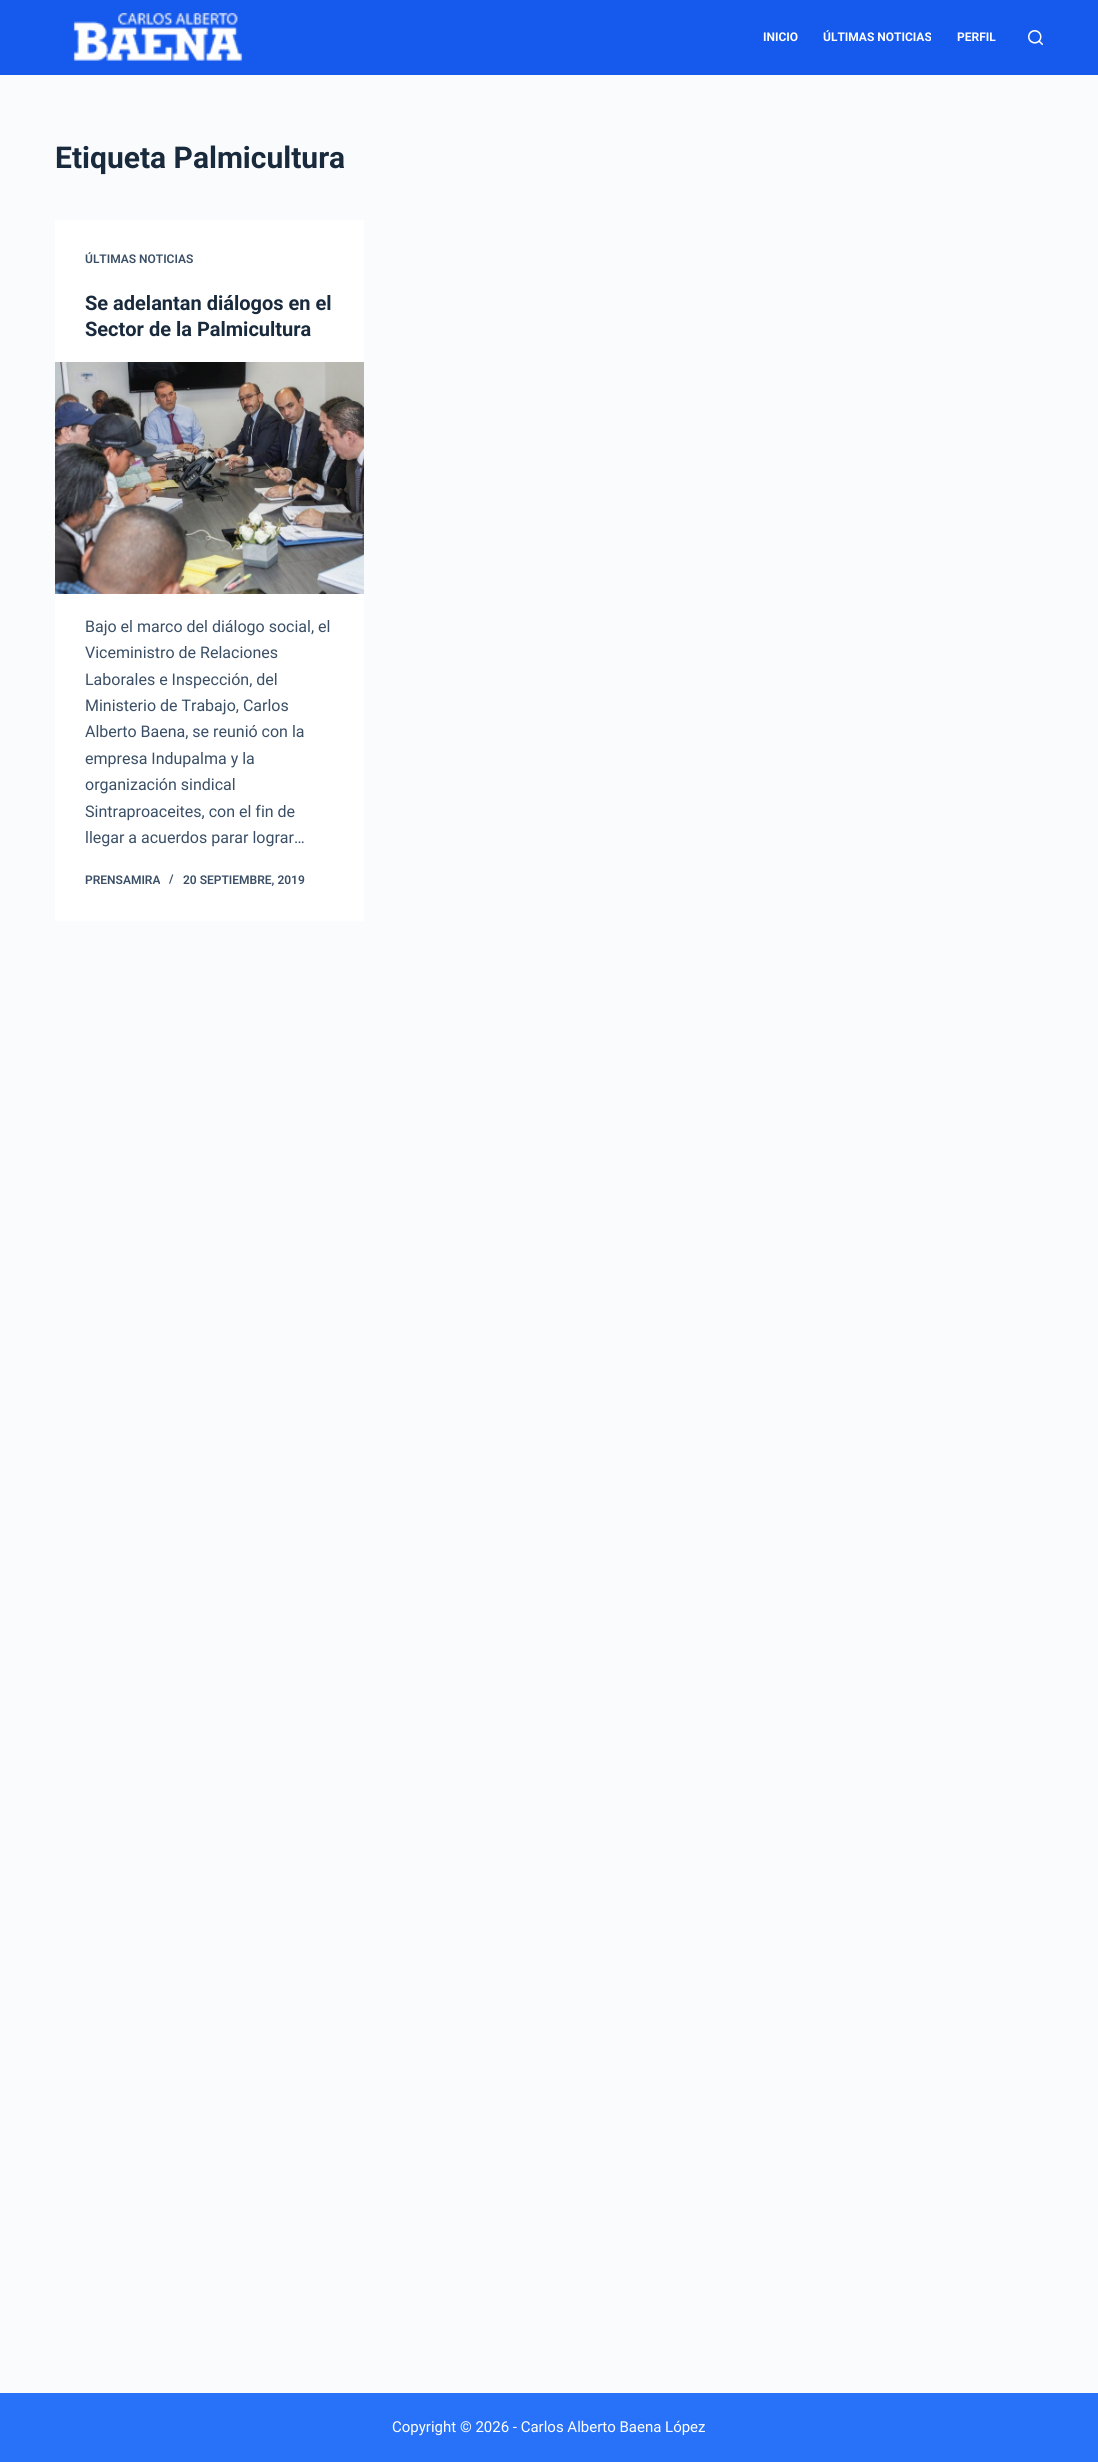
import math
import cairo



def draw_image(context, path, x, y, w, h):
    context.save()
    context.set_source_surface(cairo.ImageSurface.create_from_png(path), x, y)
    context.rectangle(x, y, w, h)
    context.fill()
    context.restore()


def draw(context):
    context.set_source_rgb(250 / 255, 251 / 255, 252 / 255)
    context.paint()
    context.set_source_rgb(21 / 255, 89 / 255, 237 / 255)
    context.rectangle(0, 0, 1098, 75)
    context.fill()
    draw_image(context, "images/1.png", 73, 13, 170, 48)
    draw_image(context, "images/2.png", 1028, 30, 15, 15)
    context.set_source_rgb(1, 1, 1)
    context.rectangle(55, 220, 309, 701)
    context.fill()
    draw_image(context, "images/3.png", 55, 362, 309, 232)
    context.set_source_rgb(40 / 255, 114 / 255, 250 / 255)
    context.rectangle(0, 2393, 1098, 69)
    context.fill()
    context.select_font_face("Roboto", cairo.FontSlant.NORMAL, cairo.FontWeight.BOLD)
    context.set_font_size(12)
    context.set_source_rgb(1, 1, 1)
    context.move_to(763, 41)
    context.show_text("INICIO")
    context.move_to(823, 41)
    context.show_text("ÚLTIMAS NOTICIAS")
    context.move_to(957, 41)
    context.show_text("PERFIL")
    context.set_font_size(30)
    context.set_source_rgb(25 / 255, 42 / 255, 61 / 255)
    context.move_to(55, 168)
    context.show_text("Etiqueta Palmicultura")
    context.select_font_face("Roboto SemiBold")
    context.set_font_size(12)
    context.set_source_rgb(58 / 255, 79 / 255, 102 / 255)
    context.move_to(85, 263)
    context.show_text("ÚLTIMAS NOTICIAS")
    context.select_font_face("Roboto", cairo.FontSlant.NORMAL, cairo.FontWeight.BOLD)
    context.set_font_size(20)
    context.set_source_rgb(25 / 255, 42 / 255, 61 / 255)
    context.move_to(85, 310)
    context.show_text("Se adelantan diálogos en el")
    context.move_to(85, 336)
    context.show_text("Sector de la Palmicultura")
    context.select_font_face("Roboto")
    context.set_font_size(16)
    context.set_source_rgb(58 / 255, 79 / 255, 102 / 255)
    context.move_to(85, 632)
    context.show_text("Bajo el marco del diálogo social, el")
    context.move_to(85, 658)
    context.show_text("Viceministro de Relaciones")
    context.move_to(85, 685)
    context.show_text("Laborales e Inspección, del")
    context.move_to(85, 711)
    context.show_text("Ministerio de Trabajo, Carlos")
    context.move_to(85, 737)
    context.show_text("Alberto Baena, se reunió con la")
    context.move_to(85, 764)
    context.show_text("empresa Indupalma y la")
    context.move_to(85, 790)
    context.show_text("organización sindical")
    context.move_to(85, 817)
    context.show_text("Sintraproaceites, con el fin de")
    context.move_to(85, 843)
    context.show_text("llegar a acuerdos parar lograr…")
    context.select_font_face("Roboto SemiBold")
    context.set_font_size(12)
    context.move_to(85, 884)
    context.show_text("PRENSAMIRA")
    context.move_to(169, 883)
    context.show_text("/")
    context.move_to(183, 884)
    context.show_text("20 SEPTIEMBRE, 2019")
    context.select_font_face("Roboto")
    context.set_font_size(15)
    context.set_source_rgb(1, 1, 1)
    context.move_to(392, 2432)
    context.show_text("Copyright © 2026 - Carlos Alberto Baena López")


surface = cairo.ImageSurface(cairo.Format.RGB24, 1098, 2462)
context = cairo.Context(surface)
options = cairo.FontOptions()
options.set_hint_metrics(cairo.HintMetrics.OFF)
options.set_hint_style(cairo.HintStyle.NONE)
context.set_font_options(options)
context.set_miter_limit(4)
draw(context)
surface.write_to_png("out.png")
